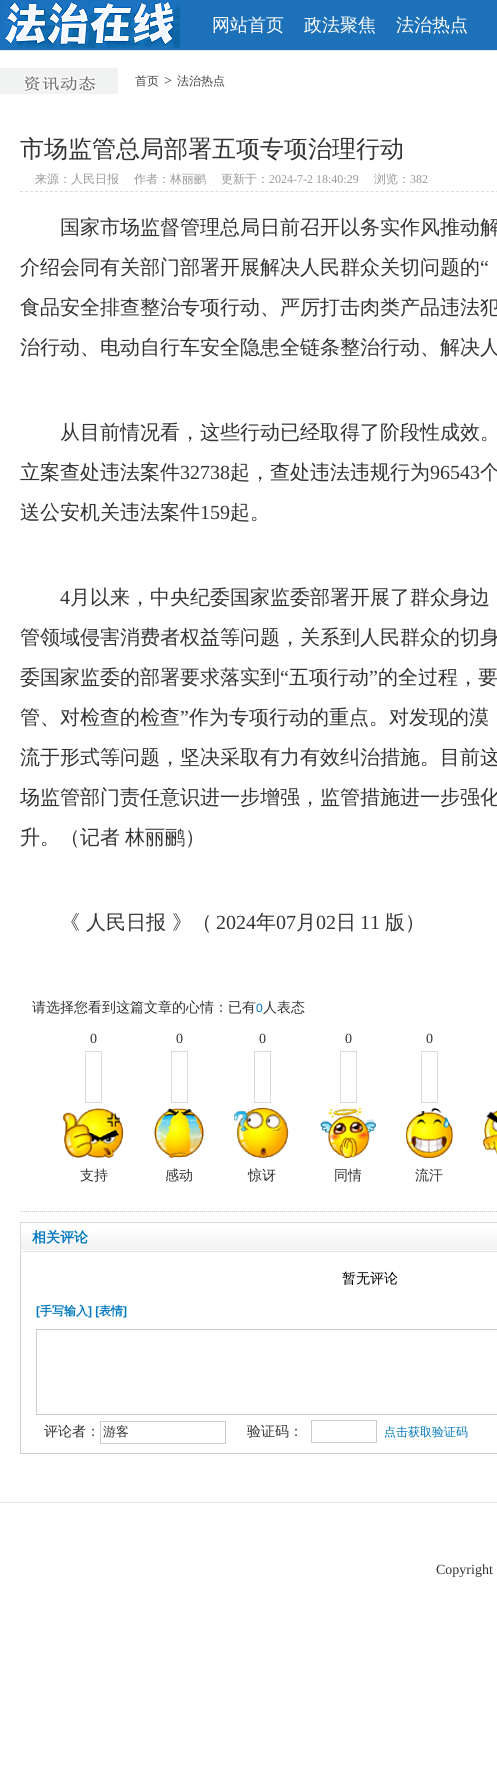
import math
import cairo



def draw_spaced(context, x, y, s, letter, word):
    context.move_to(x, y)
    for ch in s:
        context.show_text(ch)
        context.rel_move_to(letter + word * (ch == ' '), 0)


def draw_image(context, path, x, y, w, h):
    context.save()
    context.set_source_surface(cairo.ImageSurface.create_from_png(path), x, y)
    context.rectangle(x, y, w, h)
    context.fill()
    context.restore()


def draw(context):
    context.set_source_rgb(1, 1, 1)
    context.paint()
    context.set_source_rgb(29 / 255, 113 / 255, 185 / 255)
    context.rectangle(0, 0, 497, 50)
    context.fill()
    draw_image(context, "images/1.png", 0, 0, 180, 48)
    context.set_source_rgb(227 / 255, 227 / 255, 227 / 255)
    context.rectangle(0, 50, 497, 1)
    context.fill()
    draw_image(context, "images/2.png", 0, 68, 118, 26)
    context.new_path()
    context.move_to(20, 191.5)
    context.line_to(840, 191.5)
    context.set_source_rgb(221 / 255, 221 / 255, 221 / 255)
    context.set_line_width(1)
    context.set_dash([3, 2.01])
    context.stroke()
    context.new_path()
    context.move_to(20, 1211.5)
    context.line_to(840, 1211.5)
    context.set_source_rgb(204 / 255, 204 / 255, 204 / 255)
    context.set_dash([1, 1])
    context.stroke()
    context.rectangle(85.5, 1051.5, 16, 51)
    context.set_source_rgb(218 / 255, 218 / 255, 218 / 255)
    context.set_dash([])
    context.stroke()
    draw_image(context, "images/3.png", 63, 1108, 61, 50)
    context.rectangle(171.5, 1051.5, 16, 51)
    context.stroke()
    draw_image(context, "images/4.png", 154, 1108, 50, 50)
    context.rectangle(254.5, 1051.5, 16, 51)
    context.stroke()
    draw_image(context, "images/5.png", 234, 1108, 55, 50)
    context.rectangle(340.5, 1051.5, 16, 51)
    context.stroke()
    draw_image(context, "images/6.png", 320, 1108, 56, 50)
    context.rectangle(421.5, 1051.5, 16, 51)
    context.stroke()
    draw_image(context, "images/7.png", 406, 1108, 47, 50)
    draw_image(context, "images/8.png", 483, 1110, 14, 45)
    draw_image(context, "images/9.png", 20, 1222, 477, 30)
    context.set_source_rgb(206 / 255, 206 / 255, 206 / 255)
    context.rectangle(20, 1453, 477, 1)
    context.fill()
    context.rectangle(20, 1252, 1, 202)
    context.fill()
    context.rectangle(36.5, 1329.5, 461, 85)
    context.set_source_rgb(204 / 255, 204 / 255, 204 / 255)
    context.stroke()
    context.rectangle(100.5, 1421.5, 125, 22)
    context.stroke()
    context.rectangle(311.5, 1420.5, 65, 22)
    context.stroke()
    context.set_source_rgb(227 / 255, 227 / 255, 227 / 255)
    context.rectangle(0, 1502, 497, 1)
    context.fill()
    context.select_font_face("WenQuanYi Zen Hei Medium")
    context.set_font_size(18)
    context.set_source_rgb(1, 1, 1)
    context.move_to(212, 31)
    context.show_text("网站首页")
    context.move_to(304, 31)
    context.show_text("政法聚焦")
    context.move_to(396, 31)
    context.show_text("法治热点")
    context.set_font_size(12)
    context.set_source_rgb(68 / 255, 68 / 255, 68 / 255)
    context.move_to(135, 85)
    context.show_text("首页")
    context.select_font_face("Liberation Serif")
    context.set_font_size(14)
    context.set_source_rgb(51 / 255, 51 / 255, 51 / 255)
    context.move_to(164, 85)
    context.show_text(">")
    context.select_font_face("WenQuanYi Zen Hei Medium")
    context.set_font_size(12)
    context.set_source_rgb(68 / 255, 68 / 255, 68 / 255)
    context.move_to(177, 85)
    context.show_text("法治热点")
    context.set_font_size(24)
    context.set_source_rgb(51 / 255, 51 / 255, 51 / 255)
    context.move_to(20, 157)
    context.show_text("市场监管总局部署五项专项治理行动")
    context.set_font_size(12)
    context.set_source_rgb(153 / 255, 153 / 255, 153 / 255)
    context.move_to(35, 183)
    context.show_text("来源：人民日报")
    context.move_to(134, 183)
    context.show_text("作者：林丽鹂")
    context.move_to(221, 183)
    context.show_text("更新于：")
    context.select_font_face("Liberation Serif")
    context.move_to(269, 183)
    context.show_text("2024-7-2 18:40:29")
    context.select_font_face("WenQuanYi Zen Hei Medium")
    context.move_to(374, 183)
    context.show_text("浏览：")
    context.select_font_face("Liberation Serif")
    context.move_to(410, 183)
    context.show_text("382")
    context.select_font_face("WenQuanYi Zen Hei Medium")
    context.set_font_size(20)
    context.set_source_rgb(51 / 255, 51 / 255, 51 / 255)
    context.move_to(60, 234)
    context.show_text("国家市场监督管理总局日前召开以务实作风推动解")
    context.move_to(20, 274)
    context.show_text("介绍会同有关部门部署开展解决人民群众关切问题的")
    context.select_font_face("Liberation Serif")
    context.move_to(480, 274)
    context.show_text("“")
    context.select_font_face("WenQuanYi Zen Hei Medium")
    context.move_to(20, 314)
    context.show_text("食品安全排查整治专项行动、严厉打击肉类产品违法犯")
    context.move_to(20, 354)
    context.show_text("治行动、电动自行车安全隐患全链条整治行动、解决人")
    context.move_to(60, 439)
    context.show_text("从目前情况看，这些行动已经取得了阶段性成效。")
    context.move_to(20, 479)
    context.show_text("立案查处违法案件")
    context.select_font_face("Liberation Serif")
    context.move_to(180, 479)
    context.show_text("32738")
    context.select_font_face("WenQuanYi Zen Hei Medium")
    context.move_to(230, 479)
    context.show_text("起，查处违法违规行为")
    context.select_font_face("Liberation Serif")
    context.move_to(430, 479)
    context.show_text("96543")
    context.select_font_face("WenQuanYi Zen Hei Medium")
    context.move_to(480, 479)
    context.show_text("个")
    context.move_to(20, 519)
    context.show_text("送公安机关违法案件")
    context.select_font_face("Liberation Serif")
    context.move_to(200, 519)
    context.show_text("159")
    context.select_font_face("WenQuanYi Zen Hei Medium")
    context.move_to(230, 519)
    context.show_text("起。")
    context.select_font_face("Liberation Serif")
    context.move_to(60, 604)
    context.show_text("4")
    context.select_font_face("WenQuanYi Zen Hei Medium")
    context.move_to(70, 604)
    context.show_text("月以来，中央纪委国家监委部署开展了群众身边")
    context.move_to(20, 644)
    context.show_text("管领域侵害消费者权益等问题，关系到人民群众的切身")
    context.move_to(20, 684)
    context.show_text("委国家监委的部署要求落实到")
    context.select_font_face("Liberation Serif")
    context.move_to(280, 684)
    context.show_text("“")
    context.select_font_face("WenQuanYi Zen Hei Medium")
    context.move_to(289, 684)
    context.show_text("五项行动")
    context.select_font_face("Liberation Serif")
    context.move_to(369, 684)
    context.show_text("”")
    context.select_font_face("WenQuanYi Zen Hei Medium")
    context.move_to(378, 684)
    context.show_text("的全过程，要")
    context.move_to(20, 724)
    context.show_text("管、对检查的检查")
    context.select_font_face("Liberation Serif")
    context.move_to(180, 724)
    context.show_text("”")
    context.select_font_face("WenQuanYi Zen Hei Medium")
    context.move_to(189, 724)
    context.show_text("作为专项行动的重点。对发现的漠")
    context.move_to(20, 764)
    context.show_text("流于形式等问题，坚决采取有力有效纠治措施。目前这")
    context.move_to(20, 804)
    context.show_text("场监管部门责任意识进一步增强，监管措施进一步强化")
    draw_spaced(context, 20, 844, "升。（记者 林丽鹂）", 0, -1)
    context.move_to(60, 929)
    context.show_text("《 人民日报 》（")
    context.select_font_face("Liberation Serif")
    context.move_to(216, 929)
    context.show_text("2024")
    context.select_font_face("WenQuanYi Zen Hei Medium")
    context.move_to(256, 929)
    context.show_text("年")
    context.select_font_face("Liberation Serif")
    context.move_to(276, 929)
    context.show_text("07")
    context.select_font_face("WenQuanYi Zen Hei Medium")
    context.move_to(296, 929)
    context.show_text("月")
    context.select_font_face("Liberation Serif")
    context.move_to(316, 929)
    context.show_text("02")
    context.select_font_face("WenQuanYi Zen Hei Medium")
    context.move_to(336, 929)
    context.show_text("日")
    context.select_font_face("Liberation Serif")
    context.move_to(360, 929)
    context.show_text("11")
    context.select_font_face("WenQuanYi Zen Hei Medium")
    context.move_to(385, 929)
    context.show_text("版）")
    context.set_font_size(14)
    context.move_to(32, 1012)
    context.show_text("请选择您看到这篇文章的心情：已有")
    context.select_font_face("Liberation Sans")
    context.set_font_size(12)
    context.set_source_rgb(0, 120 / 255, 191 / 255)
    context.move_to(256, 1012)
    context.show_text("0")
    context.select_font_face("WenQuanYi Zen Hei Medium")
    context.set_font_size(14)
    context.set_source_rgb(51 / 255, 51 / 255, 51 / 255)
    context.move_to(263, 1012)
    context.show_text("人表态")
    context.select_font_face("Liberation Serif")
    context.move_to(90, 1043)
    context.show_text("0")
    context.select_font_face("WenQuanYi Zen Hei Medium")
    context.move_to(80, 1180)
    context.show_text("支持")
    context.select_font_face("Liberation Serif")
    context.move_to(176, 1043)
    context.show_text("0")
    context.select_font_face("WenQuanYi Zen Hei Medium")
    context.move_to(165, 1180)
    context.show_text("感动")
    context.select_font_face("Liberation Serif")
    context.move_to(259, 1043)
    context.show_text("0")
    context.select_font_face("WenQuanYi Zen Hei Medium")
    context.move_to(248, 1180)
    context.show_text("惊讶")
    context.select_font_face("Liberation Serif")
    context.move_to(345, 1043)
    context.show_text("0")
    context.select_font_face("WenQuanYi Zen Hei Medium")
    context.move_to(334, 1180)
    context.show_text("同情")
    context.select_font_face("Liberation Serif")
    context.move_to(426, 1043)
    context.show_text("0")
    context.select_font_face("WenQuanYi Zen Hei Medium")
    context.move_to(415, 1180)
    context.show_text("流汗")
    context.select_font_face("WenQuanYi Zen Hei", cairo.FontSlant.NORMAL, cairo.FontWeight.BOLD)
    context.set_source_rgb(0, 120 / 255, 191 / 255)
    context.move_to(32, 1242)
    context.show_text("相关评论")
    context.select_font_face("WenQuanYi Zen Hei Medium")
    context.set_source_rgb(0, 0, 0)
    context.move_to(342, 1283)
    context.show_text("暂无评论")
    context.select_font_face("Liberation Sans", cairo.FontSlant.NORMAL, cairo.FontWeight.BOLD)
    context.set_font_size(12)
    context.set_source_rgb(0, 120 / 255, 191 / 255)
    context.move_to(36, 1315)
    context.show_text("[")
    context.select_font_face("WenQuanYi Zen Hei", cairo.FontSlant.NORMAL, cairo.FontWeight.BOLD)
    context.move_to(40, 1315)
    context.show_text("手写输入")
    context.select_font_face("Liberation Sans", cairo.FontSlant.NORMAL, cairo.FontWeight.BOLD)
    context.move_to(88, 1315)
    context.show_text("] [")
    context.select_font_face("WenQuanYi Zen Hei", cairo.FontSlant.NORMAL, cairo.FontWeight.BOLD)
    context.move_to(99, 1315)
    context.show_text("表情")
    context.select_font_face("Liberation Sans", cairo.FontSlant.NORMAL, cairo.FontWeight.BOLD)
    context.move_to(123, 1315)
    context.show_text("]")
    context.select_font_face("WenQuanYi Zen Hei Medium")
    context.set_font_size(14)
    context.set_source_rgb(51 / 255, 51 / 255, 51 / 255)
    context.move_to(44, 1436)
    context.show_text("评论者：")
    context.set_font_size(13)
    context.move_to(103, 1436)
    context.show_text("游客")
    context.set_font_size(14)
    context.move_to(247, 1436)
    context.show_text("验证码：")
    context.set_font_size(12)
    context.set_source_rgb(0, 120 / 255, 191 / 255)
    context.move_to(384, 1436)
    context.show_text("点击获取验证码")
    context.select_font_face("Liberation Serif")
    context.set_font_size(14)
    context.set_source_rgb(51 / 255, 51 / 255, 51 / 255)
    context.move_to(436, 1574)
    context.show_text("Copyright")


surface = cairo.ImageSurface(cairo.Format.RGB24, 497, 1788)
context = cairo.Context(surface)
options = cairo.FontOptions()
options.set_hint_metrics(cairo.HintMetrics.OFF)
options.set_hint_style(cairo.HintStyle.NONE)
context.set_font_options(options)
context.set_miter_limit(4)
draw(context)
surface.write_to_png("out.png")
